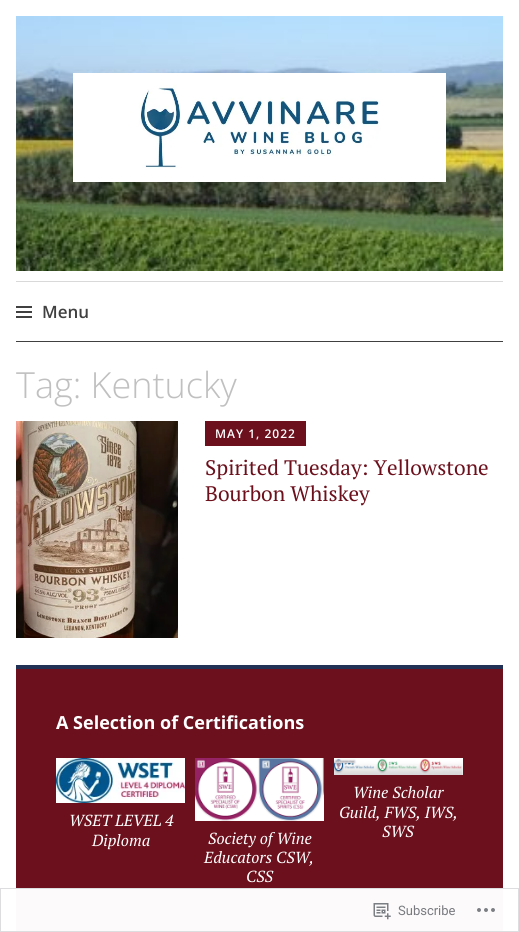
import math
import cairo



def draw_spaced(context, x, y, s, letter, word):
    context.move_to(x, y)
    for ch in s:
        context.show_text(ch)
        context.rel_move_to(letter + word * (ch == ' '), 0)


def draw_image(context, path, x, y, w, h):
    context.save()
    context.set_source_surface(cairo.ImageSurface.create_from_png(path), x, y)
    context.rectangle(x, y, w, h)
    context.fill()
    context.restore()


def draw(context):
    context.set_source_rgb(1, 1, 1)
    context.paint()
    draw_image(context, "images/1.png", 16, 16, 487, 255)
    draw_image(context, "images/2.png", 73, 73, 373, 109)
    context.set_source_rgb(217 / 255, 217 / 255, 217 / 255)
    context.rectangle(16, 281, 487, 1)
    context.fill()
    context.set_source_rgb(64 / 255, 64 / 255, 64 / 255)
    context.rectangle(16, 341, 487, 1)
    context.fill()
    draw_image(context, "images/3.png", 16, 306, 16, 12)
    draw_image(context, "images/4.png", 16, 421, 162, 217)
    context.set_source_rgb(107 / 255, 16 / 255, 28 / 255)
    context.rectangle(205, 421, 101, 25)
    context.fill()
    context.rectangle(16, 669, 487, 219)
    context.fill()
    context.set_source_rgb(252 / 255, 250 / 255, 250 / 255)
    context.rectangle(16, 888, 487, 44)
    context.fill()
    context.set_source_rgb(33 / 255, 48 / 255, 85 / 255)
    context.rectangle(16, 665, 487, 4)
    context.fill()
    draw_image(context, "images/5.png", 56, 758, 129, 45)
    draw_image(context, "images/6.png", 195, 758, 129, 63)
    draw_image(context, "images/7.png", 334, 758, 129, 17)
    context.rectangle(0.5, 888.5, 518, 43)
    context.set_source_rgba(220 / 255, 220 / 255, 222 / 255, 0.98)
    context.set_line_width(1)
    context.stroke()
    draw_image(context, "images/8.png", 373, 903, 18, 17)
    draw_image(context, "images/9.png", 477, 908, 18, 4)
    context.select_font_face("Open Sans SemiBold")
    context.set_font_size(17)
    context.set_source_rgb(64 / 255, 64 / 255, 64 / 255)
    context.move_to(42, 318)
    context.show_text("Menu")
    context.select_font_face("Open Sans Light")
    context.set_font_size(36)
    context.set_source_rgb(192 / 255, 192 / 255, 192 / 255)
    context.move_to(16, 398)
    context.show_text("Tag: Kentucky")
    context.select_font_face("Open Sans SemiBold")
    context.set_font_size(12)
    context.set_source_rgb(1, 1, 1)
    draw_spaced(context, 215, 438, "MAY 1, 2022", 1, 0)
    context.select_font_face("PT Serif")
    context.set_font_size(21)
    context.set_source_rgb(107 / 255, 16 / 255, 28 / 255)
    context.move_to(205, 475)
    context.show_text("Spirited Tuesday: Yellowstone")
    context.move_to(205, 501)
    context.show_text("Bourbon Whiskey")
    context.select_font_face("Open Sans", cairo.FontSlant.NORMAL, cairo.FontWeight.BOLD)
    context.set_font_size(18)
    context.set_source_rgb(1, 1, 1)
    context.move_to(56, 729)
    context.show_text("A Selection of Certifications")
    context.select_font_face("PT Serif", cairo.FontSlant.ITALIC)
    context.set_font_size(16)
    context.move_to(69, 826)
    context.show_text("WSET LEVEL 4")
    context.move_to(92, 846)
    context.show_text("Diploma")
    context.move_to(208, 844)
    context.show_text("Society of Wine")
    context.move_to(204, 863)
    context.show_text("Educators CSW,")
    context.move_to(246, 882)
    context.show_text("CSS")
    context.move_to(353, 798)
    context.show_text("Wine Scholar")
    context.move_to(339, 818)
    context.show_text("Guild, FWS, IWS,")
    context.move_to(382, 837)
    context.show_text("SWS")
    context.select_font_face("Roboto")
    context.set_font_size(13)
    context.set_source_rgb(120 / 255, 122 / 255, 128 / 255)
    context.move_to(398, 915)
    context.show_text("Subscribe")


surface = cairo.ImageSurface(cairo.Format.RGB24, 519, 932)
context = cairo.Context(surface)
options = cairo.FontOptions()
options.set_hint_metrics(cairo.HintMetrics.OFF)
options.set_hint_style(cairo.HintStyle.NONE)
context.set_font_options(options)
context.set_miter_limit(4)
draw(context)
surface.write_to_png("out.png")
